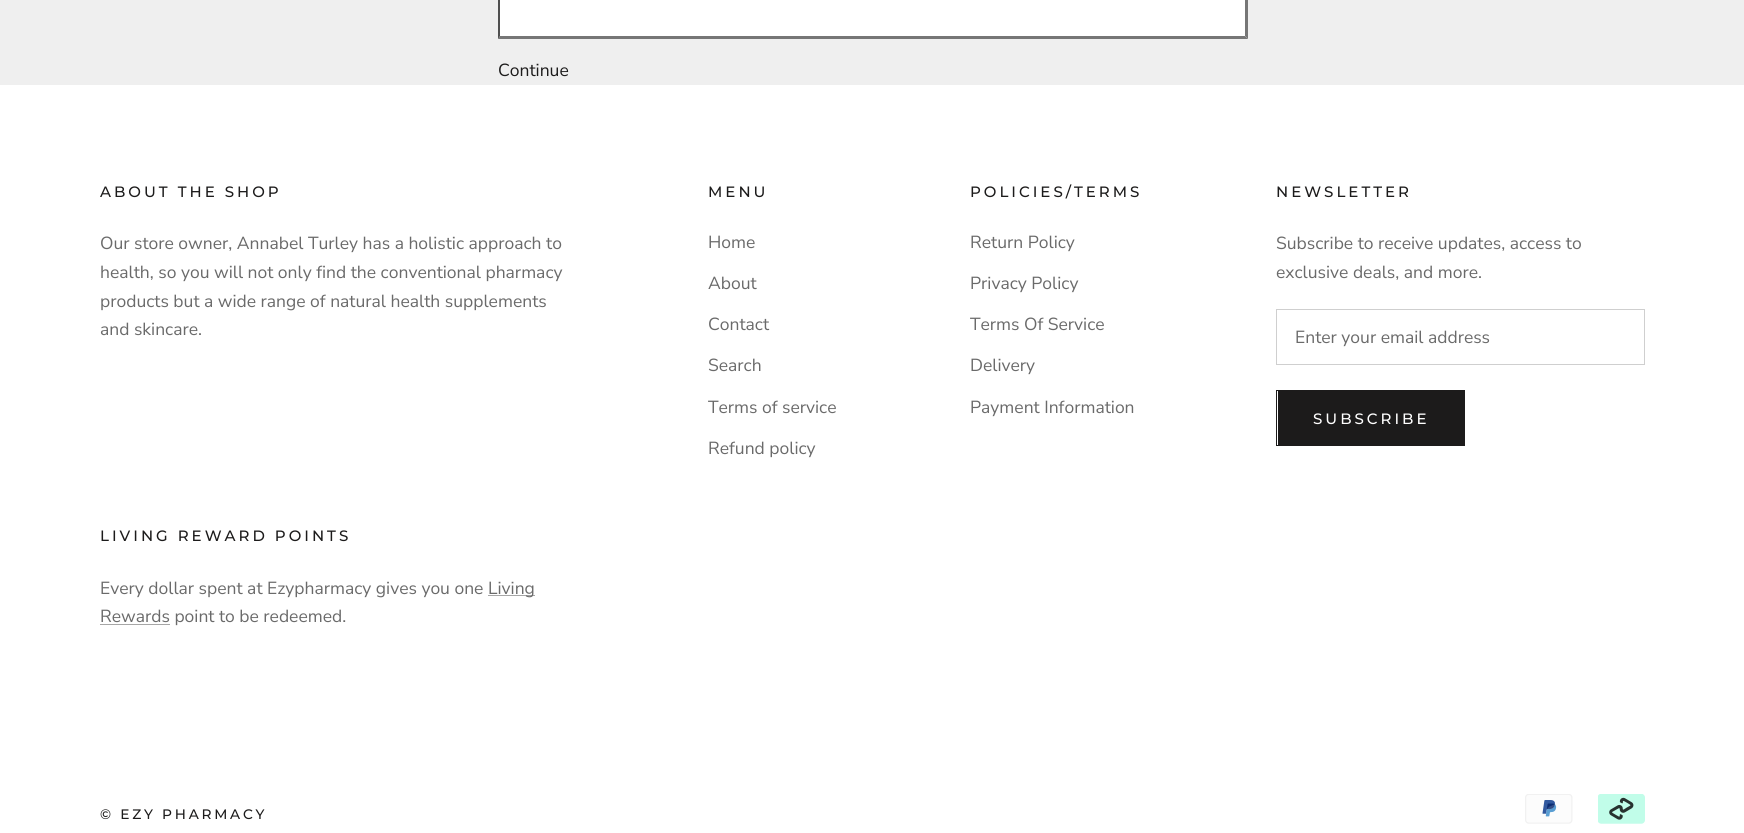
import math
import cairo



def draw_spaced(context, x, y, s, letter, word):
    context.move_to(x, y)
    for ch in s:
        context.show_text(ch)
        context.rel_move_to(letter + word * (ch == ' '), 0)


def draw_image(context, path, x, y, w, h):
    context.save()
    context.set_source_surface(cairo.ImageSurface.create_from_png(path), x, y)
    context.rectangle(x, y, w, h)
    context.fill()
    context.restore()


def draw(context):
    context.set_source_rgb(239 / 255, 239 / 255, 239 / 255)
    context.paint()
    context.set_source_rgb(1, 1, 1)
    context.rectangle(498, 0, 750, 39)
    context.fill()
    context.set_source_rgb(118 / 255, 118 / 255, 118 / 255)
    context.new_path()
    context.move_to(1248, -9)
    context.line_to(1248, 39)
    context.line_to(1245, 36)
    context.line_to(1245, -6)
    context.close_path()
    context.fill()
    context.new_path()
    context.move_to(1248, 39)
    context.line_to(498, 39)
    context.line_to(500, 36)
    context.line_to(1245, 36)
    context.close_path()
    context.fill()
    context.set_source_rgb(79 / 255, 79 / 255, 79 / 255)
    context.new_path()
    context.move_to(498, 39)
    context.line_to(498, -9)
    context.line_to(500, -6)
    context.line_to(500, 36)
    context.close_path()
    context.fill()
    context.set_source_rgb(1, 1, 1)
    context.rectangle(0, 85, 1744, 748)
    context.fill()
    context.rectangle(1276.5, 309.5, 368, 55)
    context.set_source_rgb(207 / 255, 207 / 255, 207 / 255)
    context.set_line_width(1)
    context.stroke()
    context.rectangle(1276.5, 390.5, 188, 55)
    context.set_source_rgb(28 / 255, 27 / 255, 27 / 255)
    context.stroke()
    context.rectangle(1278, 391, 186, 54)
    context.fill()
    context.set_source_rgb(166 / 255, 166 / 255, 166 / 255)
    context.rectangle(488, 595, 47, 1)
    context.fill()
    context.rectangle(100, 624, 70, 1)
    context.fill()
    draw_image(context, "images/1.png", 1525, 794, 48, 30)
    draw_image(context, "images/2.png", 1598, 794, 47, 30)
    context.select_font_face("Nunito Sans")
    context.set_font_size(17.5)
    context.set_source_rgb(28 / 255, 27 / 255, 27 / 255)
    context.move_to(498, 76)
    context.show_text("Continue")
    context.select_font_face("Montserrat Medium")
    context.set_font_size(15)
    draw_spaced(context, 100, 197, "ABOUT THE SHOP", 3, 0)
    context.select_font_face("Nunito Sans")
    context.set_font_size(17.5)
    context.set_source_rgb(106 / 255, 106 / 255, 106 / 255)
    context.move_to(100, 249)
    context.show_text("Our store owner, Annabel Turley has a holistic approach to")
    context.move_to(100, 278)
    context.show_text("health, so you will not only find the conventional pharmacy")
    context.move_to(100, 307)
    context.show_text("products but a wide range of natural health supplements")
    context.move_to(100, 335)
    context.show_text("and skincare.")
    context.select_font_face("Montserrat Medium")
    context.set_font_size(15)
    context.set_source_rgb(28 / 255, 27 / 255, 27 / 255)
    draw_spaced(context, 708, 197, "MENU", 3, 0)
    context.select_font_face("Nunito Sans")
    context.set_font_size(17.5)
    context.set_source_rgb(106 / 255, 106 / 255, 106 / 255)
    context.move_to(708, 248)
    context.show_text("Home")
    context.move_to(708, 289)
    context.show_text("About")
    context.move_to(708, 330)
    context.show_text("Contact")
    context.move_to(708, 371)
    context.show_text("Search")
    context.move_to(708, 413)
    context.show_text("Terms of service")
    context.move_to(708, 454)
    context.show_text("Refund policy")
    context.select_font_face("Montserrat Medium")
    context.set_font_size(15)
    context.set_source_rgb(28 / 255, 27 / 255, 27 / 255)
    draw_spaced(context, 970, 197, "POLICIES/TERMS", 3, 0)
    context.select_font_face("Nunito Sans")
    context.set_font_size(17.5)
    context.set_source_rgb(106 / 255, 106 / 255, 106 / 255)
    context.move_to(970, 248)
    context.show_text("Return Policy")
    context.move_to(970, 289)
    context.show_text("Privacy Policy")
    context.move_to(970, 330)
    context.show_text("Terms Of Service")
    context.move_to(970, 371)
    context.show_text("Delivery")
    context.move_to(970, 413)
    context.show_text("Payment Information")
    context.select_font_face("Montserrat Medium")
    context.set_font_size(15)
    context.set_source_rgb(28 / 255, 27 / 255, 27 / 255)
    draw_spaced(context, 1276, 197, "NEWSLETTER", 3, 0)
    context.select_font_face("Nunito Sans")
    context.set_font_size(17.5)
    context.set_source_rgb(106 / 255, 106 / 255, 106 / 255)
    context.move_to(1276, 249)
    context.show_text("Subscribe to receive updates, access to")
    context.move_to(1276, 278)
    context.show_text("exclusive deals, and more.")
    context.move_to(1295, 343)
    context.show_text("Enter your email address")
    context.select_font_face("Montserrat Medium")
    context.set_font_size(15)
    context.set_source_rgb(1, 1, 1)
    draw_spaced(context, 1313, 424, "SUBSCRIBE", 3, 0)
    context.set_source_rgb(28 / 255, 27 / 255, 27 / 255)
    draw_spaced(context, 100, 541, "LIVING REWARD POINTS", 3, 0)
    context.select_font_face("Nunito Sans")
    context.set_font_size(17.5)
    context.set_source_rgb(106 / 255, 106 / 255, 106 / 255)
    context.move_to(100, 594)
    context.show_text("Every dollar spent at Ezypharmacy gives you one")
    context.move_to(488, 594)
    context.show_text("Living")
    context.move_to(100, 622)
    context.show_text("Rewards point to be redeemed.")
    context.select_font_face("Montserrat Medium")
    context.set_font_size(13.75)
    context.set_source_rgb(28 / 255, 27 / 255, 27 / 255)
    draw_spaced(context, 100, 819, "© EZY PHARMACY", 2.75, 0)


surface = cairo.ImageSurface(cairo.Format.RGB24, 1744, 833)
context = cairo.Context(surface)
options = cairo.FontOptions()
options.set_hint_metrics(cairo.HintMetrics.OFF)
options.set_hint_style(cairo.HintStyle.NONE)
context.set_font_options(options)
context.set_miter_limit(4)
draw(context)
surface.write_to_png("out.png")
